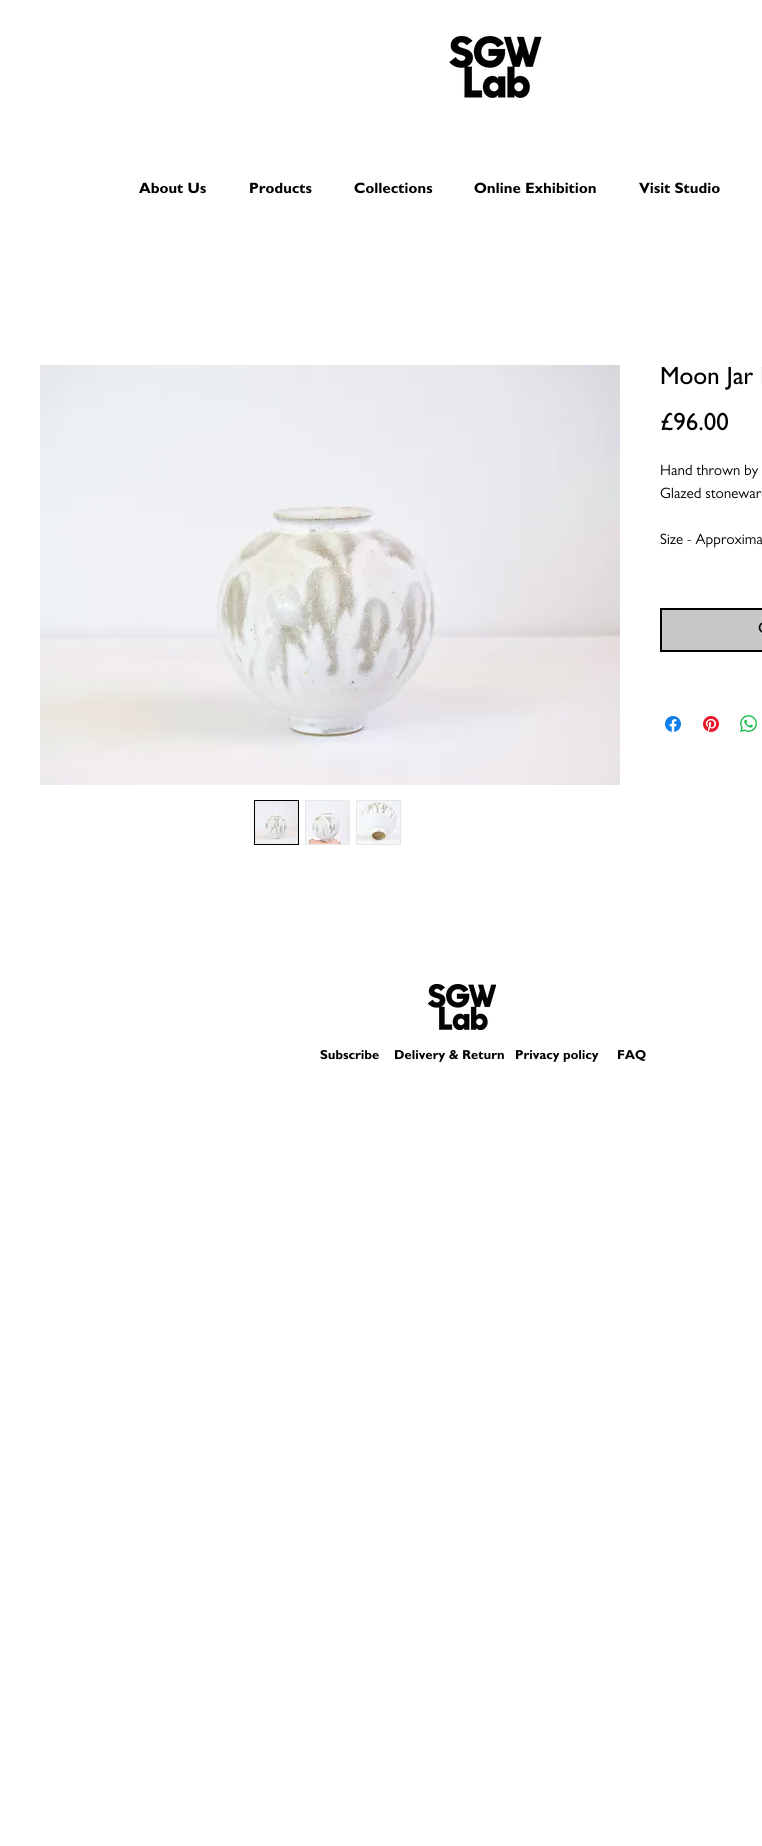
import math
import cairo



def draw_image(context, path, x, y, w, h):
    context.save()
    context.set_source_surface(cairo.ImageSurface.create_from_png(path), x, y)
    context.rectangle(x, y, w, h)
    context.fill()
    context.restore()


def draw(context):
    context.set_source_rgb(1, 1, 1)
    context.paint()
    draw_image(context, "images/1.png", 449, 35, 93, 64)
    draw_image(context, "images/2.png", 139, 182, 67, 12)
    draw_image(context, "images/3.png", 250, 182, 62, 12)
    draw_image(context, "images/4.png", 354, 182, 79, 12)
    draw_image(context, "images/5.png", 474, 182, 122, 12)
    draw_image(context, "images/6.png", 639, 182, 81, 12)
    draw_image(context, "images/7.png", 40, 365, 580, 420)
    context.rectangle(254.5, 800.5, 44, 44)
    context.set_source_rgb(0, 0, 0)
    context.set_line_width(1)
    context.stroke()
    draw_image(context, "images/8.png", 255, 801, 43, 43)
    context.rectangle(305.5, 800.5, 44, 44)
    context.set_source_rgb(232 / 255, 230 / 255, 230 / 255)
    context.stroke()
    draw_image(context, "images/9.png", 306, 801, 43, 43)
    context.rectangle(356.5, 800.5, 44, 44)
    context.stroke()
    draw_image(context, "images/10.png", 357, 801, 43, 43)
    draw_image(context, "images/11.png", 661, 366, 93, 24)
    context.set_source_rgb(242 / 255, 242 / 255, 242 / 255)
    context.rectangle(761, 367, 1, 17)
    context.fill()
    draw_image(context, "images/12.png", 661, 412, 67, 19)
    draw_image(context, "images/13.png", 661, 464, 98, 15)
    draw_image(context, "images/14.png", 660, 487, 102, 12)
    draw_image(context, "images/15.png", 660, 533, 102, 15)
    context.set_source_rgb(199 / 255, 199 / 255, 199 / 255)
    context.rectangle(661, 609, 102, 42)
    context.fill_preserve()
    context.set_source_rgb(0, 0, 0)
    context.set_line_width(2)
    context.stroke()
    draw_image(context, "images/16.png", 758, 622, 4, 11)
    draw_image(context, "images/17.png", 665, 716, 16, 16)
    draw_image(context, "images/18.png", 703, 716, 16, 16)
    draw_image(context, "images/19.png", 740, 715, 17, 17)
    draw_image(context, "images/20.png", 428, 984, 68, 46)
    draw_image(context, "images/21.png", 320, 1050, 59, 10)
    draw_image(context, "images/22.png", 395, 1050, 109, 12)
    draw_image(context, "images/23.png", 516, 1050, 83, 12)
    draw_image(context, "images/24.png", 618, 1050, 28, 11)


surface = cairo.ImageSurface(cairo.Format.RGB24, 762, 1846)
context = cairo.Context(surface)
options = cairo.FontOptions()
options.set_hint_metrics(cairo.HintMetrics.OFF)
options.set_hint_style(cairo.HintStyle.NONE)
context.set_font_options(options)
context.set_miter_limit(4)
draw(context)
surface.write_to_png("out.png")
